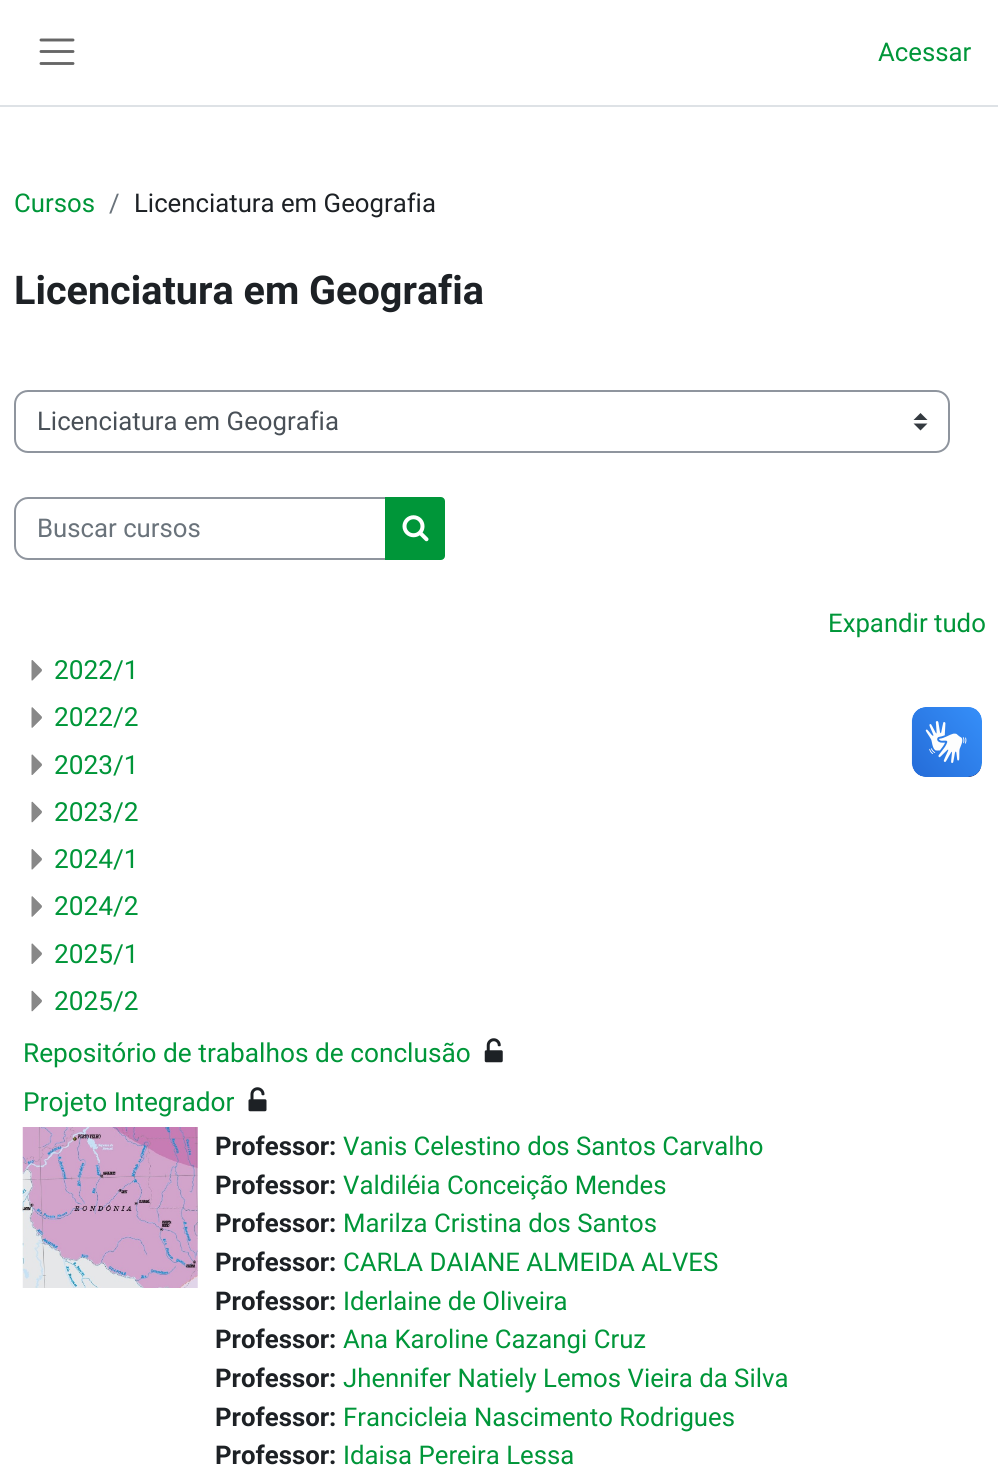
import math
import cairo



def rounded_rect(context, x, y, w, h, r):
    context.new_sub_path()
    for i, (u, v) in enumerate([(x + w - r, y + h - r), (x + r, y + h - r), (x + r, y + r), (x + w - r, y + r)]):
        context.arc(u, v, r, i * math.pi / 2, (i + 1) * math.pi / 2)
    context.close_path()


def draw_image(context, path, x, y, w, h):
    context.save()
    context.set_source_surface(cairo.ImageSurface.create_from_png(path), x, y)
    context.rectangle(x, y, w, h)
    context.fill()
    context.restore()


def draw(context):
    context.set_source_rgb(1, 1, 1)
    context.paint()
    context.set_source_rgb(222 / 255, 226 / 255, 230 / 255)
    context.rectangle(0, 105, 998, 2)
    context.fill()
    context.new_path()
    context.move_to(41, 40)
    context.line_to(73, 40)
    context.move_to(41, 51.5)
    context.line_to(73, 51.5)
    context.move_to(41, 63.5)
    context.line_to(73, 63.5)
    context.set_source_rgb(102 / 255, 102 / 255, 102 / 255)
    context.set_line_width(2.9)
    context.set_line_cap(cairo.LineCap.ROUND)
    context.stroke()
    context.set_source_rgb(52 / 255, 58 / 255, 64 / 255)
    context.new_path()
    context.move_to(920.5, 413)
    context.line_to(913.5, 420)
    context.line_to(927.5, 420)
    context.close_path()
    context.move_to(920.5, 430.5)
    context.line_to(913.5, 423.5)
    context.line_to(927.5, 423.5)
    context.close_path()
    context.fill()
    rounded_rect(context, 15, 391, 934, 61, 13)
    context.set_source_rgb(143 / 255, 149 / 255, 158 / 255)
    context.set_line_width(2)
    context.set_line_cap(cairo.LineCap.BUTT)
    context.stroke()
    context.new_path()
    context.move_to(28, 498)
    context.line_to(386, 498)
    context.line_to(386, 559)
    context.line_to(28, 559)
    context.curve_to(21, 559, 15, 553, 15, 546)
    context.line_to(15, 511)
    context.curve_to(15, 504, 21, 498, 28, 498)
    context.close_path()
    context.stroke()
    context.set_source_rgb(0, 150 / 255, 57 / 255)
    context.new_path()
    context.move_to(386, 498)
    context.line_to(441, 498)
    context.curve_to(442.5, 498, 444, 499.5, 444, 501)
    context.line_to(444, 556)
    context.curve_to(444, 557.5, 442.5, 559, 441, 559)
    context.line_to(386, 559)
    context.close_path()
    context.fill_preserve()
    context.stroke()
    draw_image(context, "images/1.png", 402, 515, 27, 27)
    draw_image(context, "images/2.png", 31, 660, 11, 21)
    draw_image(context, "images/3.png", 31, 707, 11, 21)
    draw_image(context, "images/4.png", 31, 754, 11, 21)
    draw_image(context, "images/5.png", 31, 801, 11, 22)
    draw_image(context, "images/2.png", 31, 849, 11, 21)
    draw_image(context, "images/3.png", 31, 896, 11, 21)
    draw_image(context, "images/6.png", 31, 943, 11, 21)
    draw_image(context, "images/5.png", 31, 990, 11, 22)
    draw_image(context, "images/7.png", 484, 1038, 19, 25)
    draw_image(context, "images/8.png", 248, 1087, 19, 25)
    draw_image(context, "images/9.png", 22, 1127, 176, 161)
    draw_image(context, "images/10.png", 911, 707, 71, 70)
    draw_image(context, "images/11.png", 912, 707, 70, 70)
    context.select_font_face("Roboto")
    context.set_font_size(25.75)
    context.move_to(878, 61)
    context.show_text("Acessar")
    context.move_to(14, 212)
    context.show_text("Cursos")
    context.set_source_rgb(106 / 255, 115 / 255, 123 / 255)
    context.move_to(109, 212)
    context.show_text("/")
    context.set_source_rgb(29 / 255, 33 / 255, 37 / 255)
    context.move_to(134, 212)
    context.show_text("Licenciatura em Geografia")
    context.select_font_face("Roboto", cairo.FontSlant.NORMAL, cairo.FontWeight.BOLD)
    context.set_font_size(39.6)
    context.move_to(14, 304)
    context.show_text("Licenciatura em Geografia")
    context.select_font_face("Roboto")
    context.set_font_size(25.75)
    context.set_source_rgb(73 / 255, 80 / 255, 87 / 255)
    context.move_to(37, 430)
    context.show_text("Licenciatura em Geografia")
    context.set_source_rgb(106 / 255, 115 / 255, 123 / 255)
    context.move_to(37, 537)
    context.show_text("Buscar cursos")
    context.set_source_rgb(0, 150 / 255, 57 / 255)
    context.move_to(828, 632)
    context.show_text("Expandir tudo")
    context.set_font_size(26.25)
    context.move_to(54, 679)
    context.show_text("2022/1")
    context.move_to(54, 726)
    context.show_text("2022/2")
    context.move_to(54, 774)
    context.show_text("2023/1")
    context.move_to(54, 821)
    context.show_text("2023/2")
    context.move_to(54, 868)
    context.show_text("2024/1")
    context.move_to(54, 915)
    context.show_text("2024/2")
    context.move_to(54, 963)
    context.show_text("2025/1")
    context.move_to(54, 1010)
    context.show_text("2025/2")
    context.move_to(23, 1062)
    context.show_text("Repositório de trabalhos de conclusão")
    context.move_to(23, 1111)
    context.show_text("Projeto Integrador")
    context.select_font_face("Roboto", cairo.FontSlant.NORMAL, cairo.FontWeight.BOLD)
    context.set_font_size(25.75)
    context.set_source_rgb(29 / 255, 33 / 255, 37 / 255)
    context.move_to(215, 1155)
    context.show_text("Professor:")
    context.select_font_face("Roboto")
    context.set_source_rgb(0, 150 / 255, 57 / 255)
    context.move_to(343, 1155)
    context.show_text("Vanis Celestino dos Santos Carvalho")
    context.select_font_face("Roboto", cairo.FontSlant.NORMAL, cairo.FontWeight.BOLD)
    context.set_source_rgb(29 / 255, 33 / 255, 37 / 255)
    context.move_to(215, 1194)
    context.show_text("Professor:")
    context.select_font_face("Roboto")
    context.set_source_rgb(0, 150 / 255, 57 / 255)
    context.move_to(343, 1194)
    context.show_text("Valdiléia Conceição Mendes")
    context.select_font_face("Roboto", cairo.FontSlant.NORMAL, cairo.FontWeight.BOLD)
    context.set_source_rgb(29 / 255, 33 / 255, 37 / 255)
    context.move_to(215, 1232)
    context.show_text("Professor:")
    context.select_font_face("Roboto")
    context.set_source_rgb(0, 150 / 255, 57 / 255)
    context.move_to(343, 1232)
    context.show_text("Marilza Cristina dos Santos")
    context.select_font_face("Roboto", cairo.FontSlant.NORMAL, cairo.FontWeight.BOLD)
    context.set_source_rgb(29 / 255, 33 / 255, 37 / 255)
    context.move_to(215, 1271)
    context.show_text("Professor:")
    context.select_font_face("Roboto")
    context.set_source_rgb(0, 150 / 255, 57 / 255)
    context.move_to(343, 1271)
    context.show_text("CARLA DAIANE ALMEIDA ALVES")
    context.select_font_face("Roboto", cairo.FontSlant.NORMAL, cairo.FontWeight.BOLD)
    context.set_source_rgb(29 / 255, 33 / 255, 37 / 255)
    context.move_to(215, 1310)
    context.show_text("Professor:")
    context.select_font_face("Roboto")
    context.set_source_rgb(0, 150 / 255, 57 / 255)
    context.move_to(343, 1310)
    context.show_text("Iderlaine de Oliveira")
    context.select_font_face("Roboto", cairo.FontSlant.NORMAL, cairo.FontWeight.BOLD)
    context.set_source_rgb(29 / 255, 33 / 255, 37 / 255)
    context.move_to(215, 1348)
    context.show_text("Professor:")
    context.select_font_face("Roboto")
    context.set_source_rgb(0, 150 / 255, 57 / 255)
    context.move_to(343, 1348)
    context.show_text("Ana Karoline Cazangi Cruz")
    context.select_font_face("Roboto", cairo.FontSlant.NORMAL, cairo.FontWeight.BOLD)
    context.set_source_rgb(29 / 255, 33 / 255, 37 / 255)
    context.move_to(215, 1387)
    context.show_text("Professor:")
    context.select_font_face("Roboto")
    context.set_source_rgb(0, 150 / 255, 57 / 255)
    context.move_to(343, 1387)
    context.show_text("Jhennifer Natiely Lemos Vieira da Silva")
    context.select_font_face("Roboto", cairo.FontSlant.NORMAL, cairo.FontWeight.BOLD)
    context.set_source_rgb(29 / 255, 33 / 255, 37 / 255)
    context.move_to(215, 1426)
    context.show_text("Professor:")
    context.select_font_face("Roboto")
    context.set_source_rgb(0, 150 / 255, 57 / 255)
    context.move_to(343, 1426)
    context.show_text("Francicleia Nascimento Rodrigues")
    context.select_font_face("Roboto", cairo.FontSlant.NORMAL, cairo.FontWeight.BOLD)
    context.set_source_rgb(29 / 255, 33 / 255, 37 / 255)
    context.move_to(215, 1464)
    context.show_text("Professor:")
    context.select_font_face("Roboto")
    context.set_source_rgb(0, 150 / 255, 57 / 255)
    context.move_to(343, 1464)
    context.show_text("Idaisa Pereira Lessa")


surface = cairo.ImageSurface(cairo.Format.RGB24, 998, 1484)
context = cairo.Context(surface)
options = cairo.FontOptions()
options.set_hint_metrics(cairo.HintMetrics.OFF)
options.set_hint_style(cairo.HintStyle.NONE)
context.set_font_options(options)
context.set_miter_limit(4)
draw(context)
surface.write_to_png("out.png")
